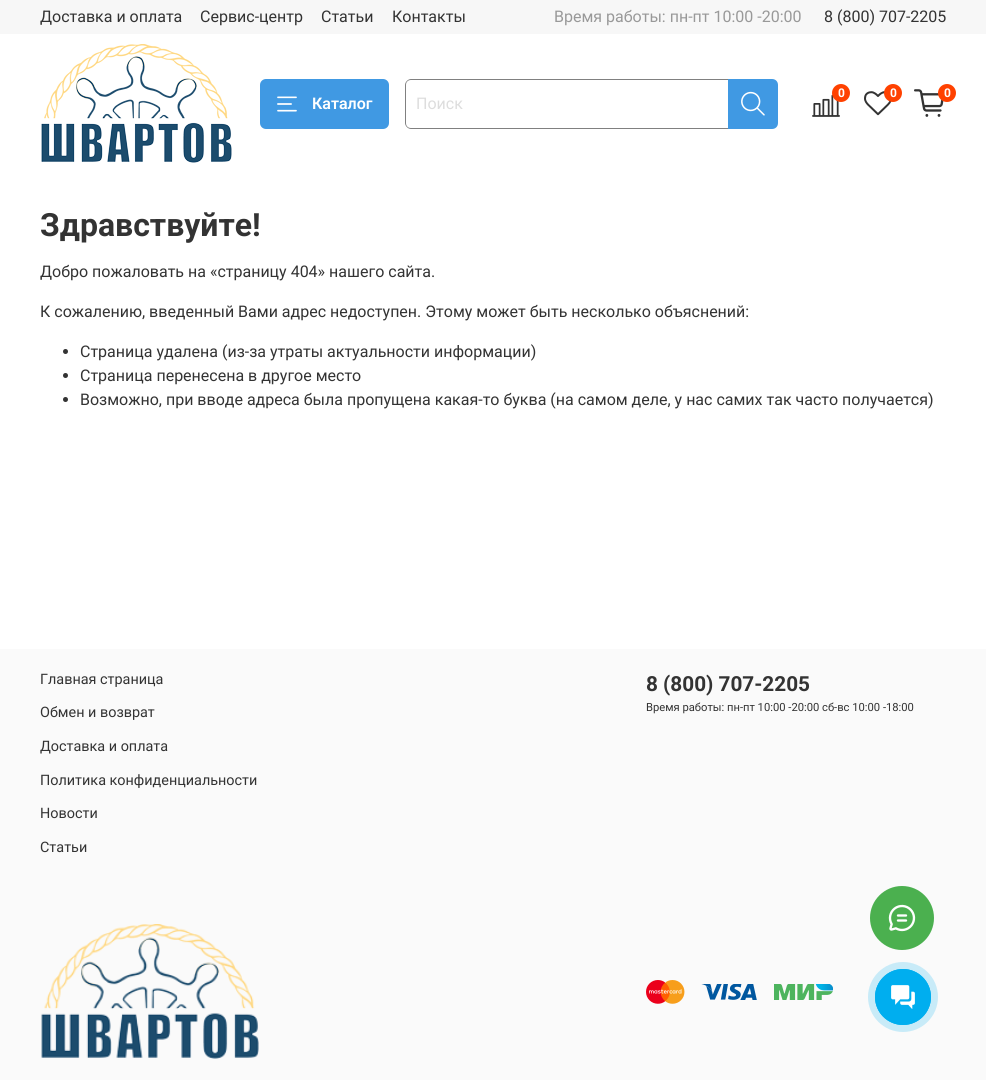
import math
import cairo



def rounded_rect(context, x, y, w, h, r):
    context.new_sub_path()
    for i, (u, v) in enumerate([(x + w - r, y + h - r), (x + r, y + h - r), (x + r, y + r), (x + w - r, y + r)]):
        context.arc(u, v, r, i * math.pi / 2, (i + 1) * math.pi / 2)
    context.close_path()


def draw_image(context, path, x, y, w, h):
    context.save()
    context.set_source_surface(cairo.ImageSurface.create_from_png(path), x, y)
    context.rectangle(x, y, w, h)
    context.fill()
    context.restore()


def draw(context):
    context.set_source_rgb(1, 1, 1)
    context.paint()
    context.set_source_rgb(247 / 255, 247 / 255, 247 / 255)
    context.rectangle(0, 0, 986, 34)
    context.fill()
    draw_image(context, "images/1.png", 41, 44, 191, 119)
    draw_image(context, "images/2.png", 812, 94, 28, 23)
    context.set_source_rgb(1, 65 / 255, 0)
    context.arc(841, 93, 9, 0, 2 * math.pi)
    context.fill()
    draw_image(context, "images/3.png", 864, 91, 28, 25)
    context.arc(893, 93, 9, 0, 2 * math.pi)
    context.fill()
    draw_image(context, "images/4.png", 914, 89, 30, 28)
    context.arc(947, 93, 9, 0, 2 * math.pi)
    context.fill()
    context.set_source_rgb(64 / 255, 153 / 255, 227 / 255)
    rounded_rect(context, 260, 79, 129, 50, 6)
    context.fill()
    draw_image(context, "images/5.png", 277, 96, 20, 16)
    context.set_source_rgb(128 / 255, 128 / 255, 128 / 255)
    context.set_fill_rule(cairo.FillRule.EVEN_ODD)
    context.new_path()
    context.move_to(411, 79)
    context.line_to(728, 79)
    context.line_to(728, 129)
    context.line_to(411, 129)
    context.curve_to(408, 129, 405, 126, 405, 123)
    context.line_to(405, 85)
    context.curve_to(405, 82, 408, 79, 411, 79)
    context.close_path()
    context.move_to(411, 80)
    context.line_to(728, 80)
    context.line_to(728, 128)
    context.line_to(411, 128)
    context.curve_to(408, 128, 406, 126, 406, 123)
    context.line_to(406, 85)
    context.curve_to(406, 82, 408, 80, 411, 80)
    context.close_path()
    context.fill()
    context.set_source_rgb(64 / 255, 153 / 255, 227 / 255)
    context.new_path()
    context.move_to(728, 79)
    context.line_to(772, 79)
    context.curve_to(775.5, 79, 778, 81.5, 778, 85)
    context.line_to(778, 123)
    context.curve_to(778, 126.5, 775.5, 129, 772, 129)
    context.line_to(728, 129)
    context.close_path()
    context.fill()
    draw_image(context, "images/6.png", 741, 91, 24, 25)
    context.set_source_rgb(51 / 255, 51 / 255, 51 / 255)
    context.arc(65.5, 351.5, 2.5, 0, 2 * math.pi)
    context.fill()
    context.arc(65.5, 375.5, 2.5, 0, 2 * math.pi)
    context.fill()
    context.arc(65.5, 399.5, 2.5, 0, 2 * math.pi)
    context.fill()
    context.set_source_rgb(250 / 255, 250 / 255, 250 / 255)
    context.rectangle(0, 649, 986, 431)
    context.fill()
    draw_image(context, "images/7.png", 41, 924, 218, 135)
    draw_image(context, "images/8.png", 646, 980, 39, 24)
    draw_image(context, "images/9.png", 701, 984, 56, 16)
    draw_image(context, "images/10.png", 774, 984, 59, 16)
    context.set_source_rgb(75 / 255, 176 / 255, 79 / 255)
    context.arc(902, 918, 32, 0, 2 * math.pi)
    context.fill()
    draw_image(context, "images/11.png", 888, 904, 28, 28)
    context.set_source_rgb(200 / 255, 235 / 255, 248 / 255)
    context.arc(903, 997, 35, 0, 2 * math.pi)
    context.fill()
    context.arc(903, 997, 27.6, 0, 2 * math.pi)
    context.set_source_rgb(0, 174 / 255, 239 / 255)
    context.set_line_width(0.8)
    context.stroke()
    context.arc(903, 997, 28, 0, 2 * math.pi)
    context.fill()
    draw_image(context, "images/12.png", 891, 985, 24, 24)
    context.select_font_face("Roboto")
    context.set_font_size(16)
    context.set_source_rgb(51 / 255, 51 / 255, 51 / 255)
    context.move_to(40, 22)
    context.show_text("Доставка и оплата")
    context.move_to(200, 22)
    context.show_text("Сервис-центр")
    context.move_to(321, 22)
    context.show_text("Статьи")
    context.move_to(392, 22)
    context.show_text("Контакты")
    context.set_source_rgb(153 / 255, 153 / 255, 153 / 255)
    context.move_to(554, 22)
    context.show_text("Время работы: пн-пт 10:00 -20:00")
    context.set_source_rgb(51 / 255, 51 / 255, 51 / 255)
    context.move_to(824, 22)
    context.show_text("8 (800) 707-2205")
    context.select_font_face("Roboto", cairo.FontSlant.NORMAL, cairo.FontWeight.BOLD)
    context.set_font_size(12)
    context.set_source_rgb(1, 1, 1)
    context.move_to(838, 97)
    context.show_text("0")
    context.move_to(890, 97)
    context.show_text("0")
    context.move_to(944, 97)
    context.show_text("0")
    context.select_font_face("Roboto SemiBold")
    context.set_font_size(16)
    context.move_to(312, 109)
    context.show_text("Каталог")
    context.select_font_face("Roboto")
    context.set_source_rgb(221 / 255, 221 / 255, 221 / 255)
    context.move_to(416, 109)
    context.show_text("Поиск")
    context.select_font_face("Roboto", cairo.FontSlant.NORMAL, cairo.FontWeight.BOLD)
    context.set_font_size(32)
    context.set_source_rgb(51 / 255, 51 / 255, 51 / 255)
    context.move_to(40, 236)
    context.show_text("Здравствуйте!")
    context.select_font_face("Roboto")
    context.set_font_size(16)
    context.move_to(40, 277)
    context.show_text("Добро пожаловать на «страницу 404» нашего сайта.")
    context.move_to(40, 317)
    context.show_text("К сожалению, введенный Вами адрес недоступен. Этому может быть несколько объяснений:")
    context.move_to(80, 357)
    context.show_text("Страница удалена (из-за утраты актуальности информации)")
    context.move_to(80, 381)
    context.show_text("Страница перенесена в другое место")
    context.move_to(80, 405)
    context.show_text("Возможно, при вводе адреса была пропущена какая-то буква (на самом деле, у нас самих так часто получается)")
    context.set_font_size(14.4)
    context.move_to(40, 684)
    context.show_text("Главная страница")
    context.move_to(40, 717)
    context.show_text("Обмен и возврат")
    context.move_to(40, 751)
    context.show_text("Доставка и оплата")
    context.move_to(40, 785)
    context.show_text("Политика конфиденциальности")
    context.move_to(40, 818)
    context.show_text("Новости")
    context.move_to(40, 852)
    context.show_text("Статьи")
    context.select_font_face("Roboto", cairo.FontSlant.NORMAL, cairo.FontWeight.BOLD)
    context.set_font_size(20.75)
    context.move_to(646, 691)
    context.show_text("8 (800) 707-2205")
    context.select_font_face("Roboto")
    context.set_font_size(11.2)
    context.move_to(646, 711)
    context.show_text("Время работы: пн-пт 10:00 -20:00 сб-вс 10:00 -18:00")


surface = cairo.ImageSurface(cairo.Format.RGB24, 986, 1080)
context = cairo.Context(surface)
options = cairo.FontOptions()
options.set_hint_metrics(cairo.HintMetrics.OFF)
options.set_hint_style(cairo.HintStyle.NONE)
context.set_font_options(options)
context.set_miter_limit(4)
draw(context)
surface.write_to_png("out.png")
